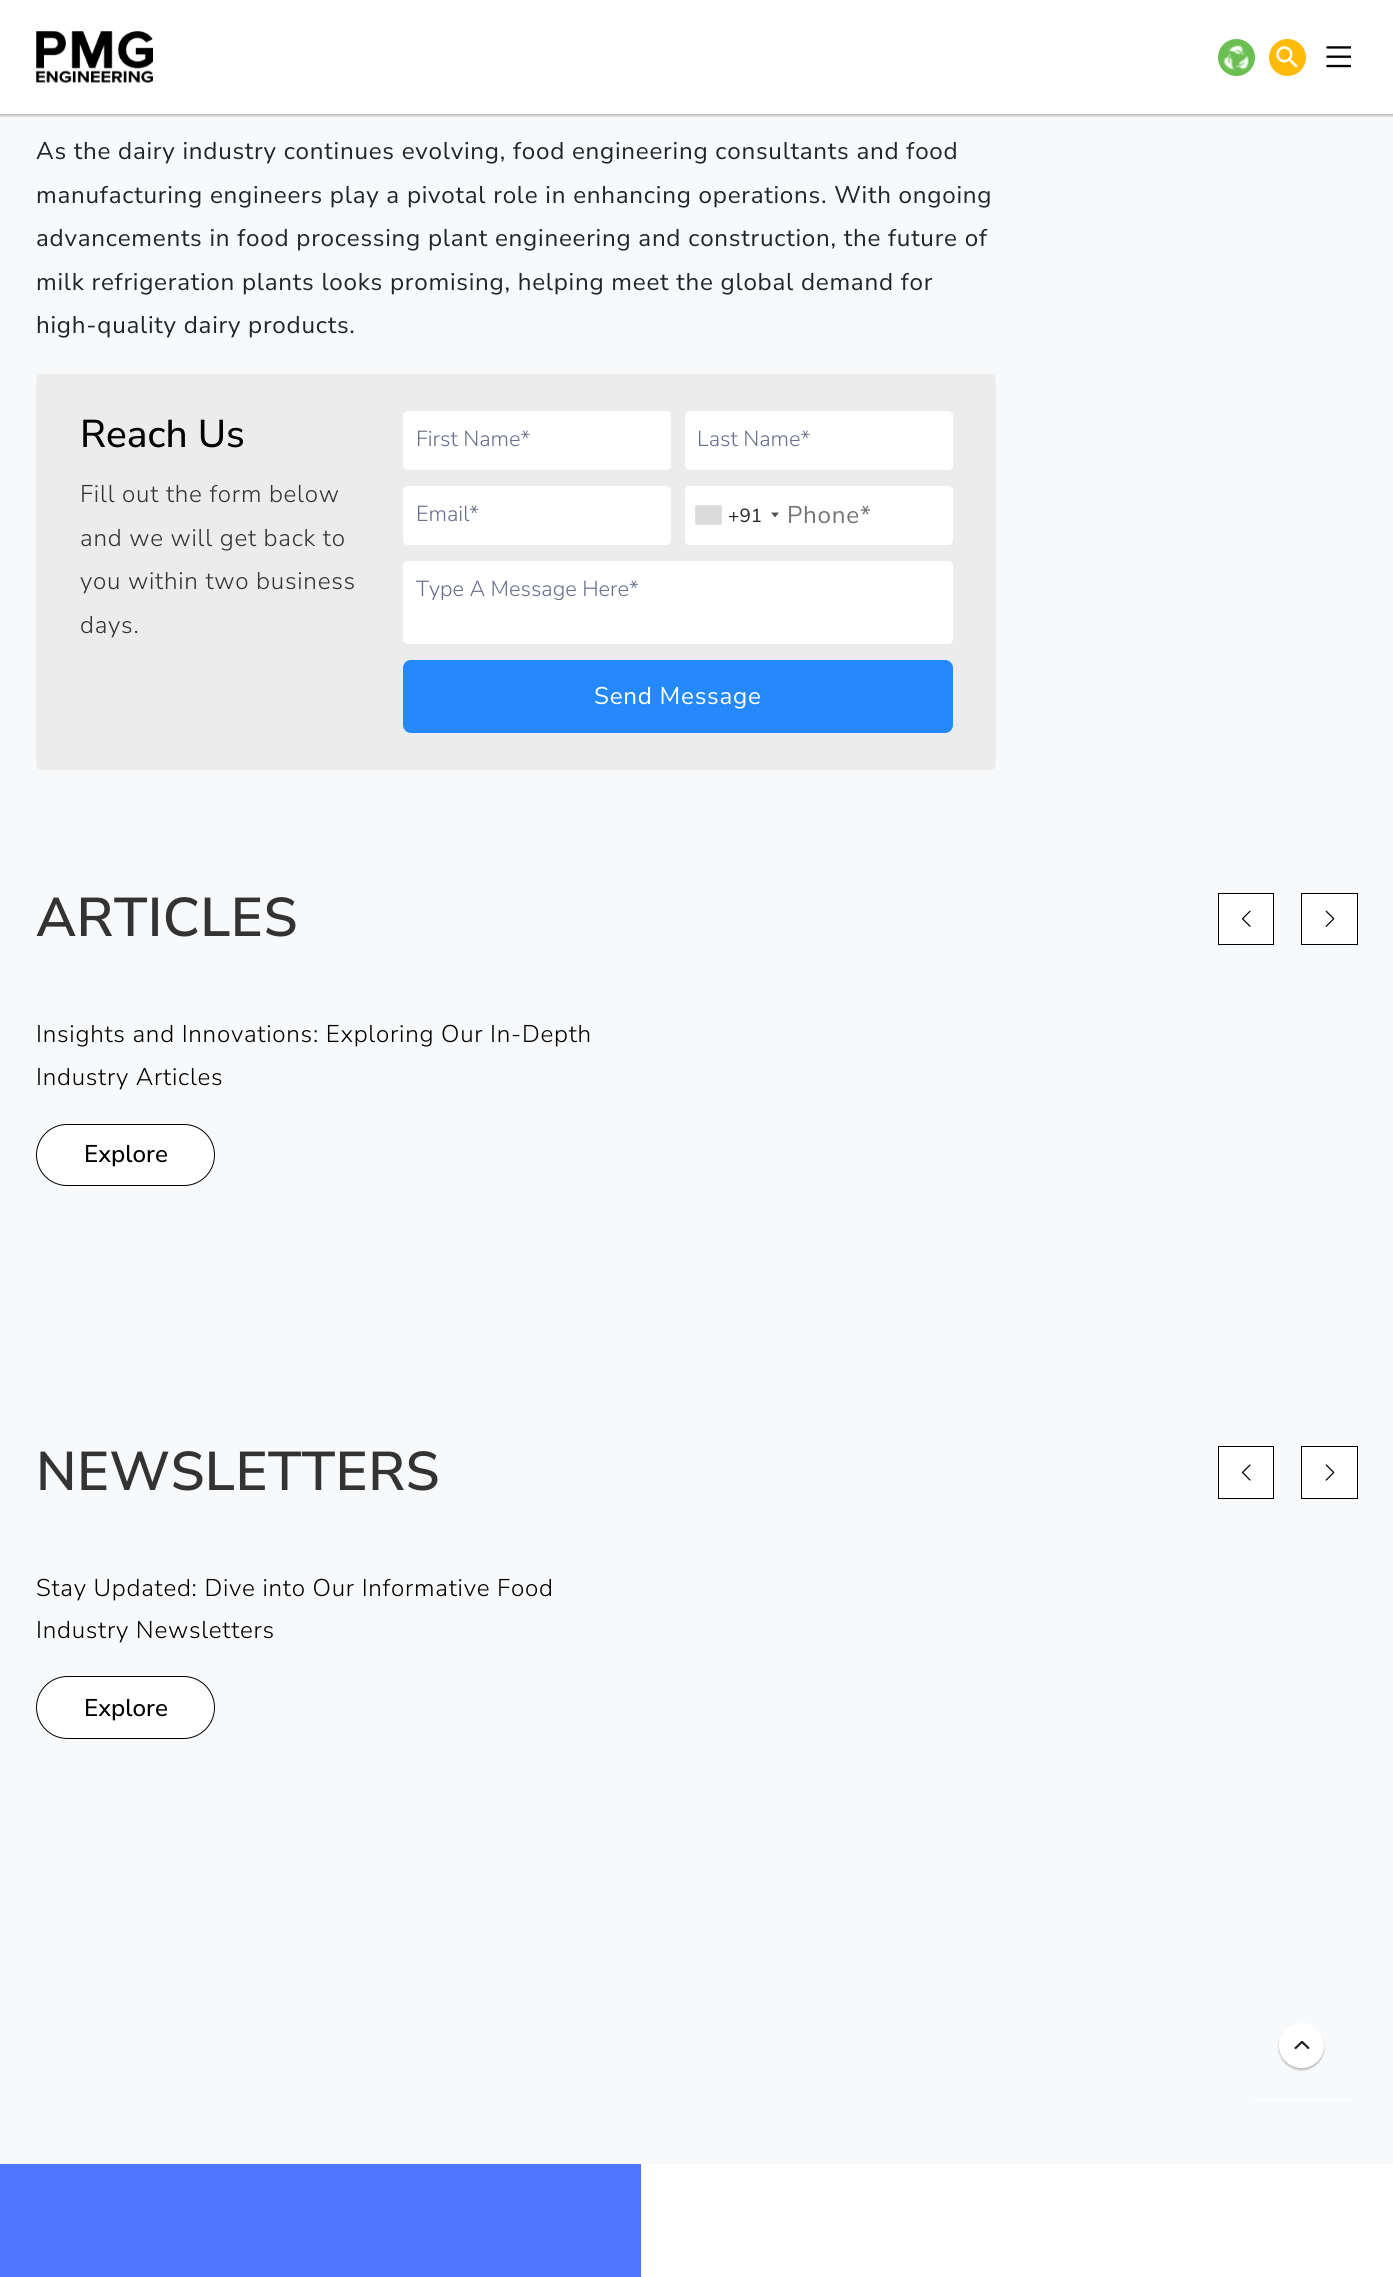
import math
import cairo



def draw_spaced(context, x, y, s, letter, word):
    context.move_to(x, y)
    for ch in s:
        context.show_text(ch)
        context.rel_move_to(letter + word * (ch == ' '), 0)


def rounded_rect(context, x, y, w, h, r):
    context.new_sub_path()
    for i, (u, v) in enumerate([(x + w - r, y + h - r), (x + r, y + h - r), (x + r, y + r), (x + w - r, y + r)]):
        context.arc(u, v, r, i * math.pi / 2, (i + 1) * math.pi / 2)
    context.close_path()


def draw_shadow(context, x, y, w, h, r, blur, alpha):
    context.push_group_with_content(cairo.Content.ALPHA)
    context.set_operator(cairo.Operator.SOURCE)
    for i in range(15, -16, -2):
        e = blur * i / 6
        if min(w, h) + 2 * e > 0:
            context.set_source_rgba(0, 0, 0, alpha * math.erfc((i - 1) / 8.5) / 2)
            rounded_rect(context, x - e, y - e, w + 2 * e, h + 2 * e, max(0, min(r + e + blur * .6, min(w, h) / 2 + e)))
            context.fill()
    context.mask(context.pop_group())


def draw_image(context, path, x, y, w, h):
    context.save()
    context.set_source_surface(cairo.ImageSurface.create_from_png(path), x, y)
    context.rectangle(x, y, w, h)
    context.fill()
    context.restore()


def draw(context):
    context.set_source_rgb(248 / 255, 249 / 255, 250 / 255)
    context.paint()
    context.set_source_rgb(0, 0, 0)
    draw_shadow(context, 0, 3, 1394, 113, 0, 1, 0.25)
    context.set_source_rgb(1, 1, 1)
    context.rectangle(0, 0, 1393, 114)
    context.fill()
    draw_image(context, "images/1.png", 36, 31, 117, 52)
    context.set_source_rgb(106 / 255, 190 / 255, 82 / 255)
    context.arc(1236.5, 57.5, 18.5, 0, 2 * math.pi)
    context.fill()
    draw_image(context, "images/2.png", 1223, 45, 26, 25)
    context.set_source_rgb(1, 186 / 255, 10 / 255)
    context.arc(1287.5, 57.5, 18.5, 0, 2 * math.pi)
    context.fill()
    draw_image(context, "images/3.png", 1276, 46, 22, 22)
    draw_image(context, "images/4.png", 1326, 46, 25, 22)
    context.set_source_rgb(236 / 255, 236 / 255, 236 / 255)
    rounded_rect(context, 36, 374, 960, 396, 6)
    context.fill()
    context.set_source_rgb(1, 1, 1)
    rounded_rect(context, 403, 411, 268, 59, 5)
    context.fill()
    rounded_rect(context, 685, 411, 268, 59, 5)
    context.fill()
    rounded_rect(context, 403, 486, 268, 59, 5)
    context.fill()
    rounded_rect(context, 685, 486, 268, 59, 5)
    context.fill()
    context.rectangle(686, 543, 1, 1)
    context.fill()
    context.set_source_rgb(136 / 255, 136 / 255, 136 / 255)
    draw_shadow(context, 696, 506, 25, 18, 0, 0.5, 1)
    context.set_source_rgb(219 / 255, 219 / 255, 219 / 255)
    context.rectangle(696, 506, 25, 18)
    context.fill()
    context.set_source_rgb(85 / 255, 85 / 255, 85 / 255)
    context.new_path()
    context.move_to(771, 512.5)
    context.line_to(779, 512.5)
    context.line_to(775, 517.5)
    context.close_path()
    context.fill()
    context.set_source_rgb(1, 1, 1)
    rounded_rect(context, 403, 561, 550, 83, 5)
    context.fill()
    context.set_source_rgb(36 / 255, 137 / 255, 1)
    rounded_rect(context, 403, 660, 550, 73, 8)
    context.fill()
    context.set_source_rgb(1, 1, 1)
    context.rectangle(1218.5, 893.5, 55, 51)
    context.fill_preserve()
    context.set_source_rgb(0, 0, 0)
    context.set_line_width(1)
    context.stroke()
    draw_image(context, "images/5.png", 1241, 910, 10, 17)
    context.set_source_rgb(1, 1, 1)
    context.rectangle(1301.5, 893.5, 56, 51)
    context.fill_preserve()
    context.set_source_rgb(0, 0, 0)
    context.stroke()
    draw_image(context, "images/6.png", 1325, 910, 10, 17)
    context.set_source_rgb(1, 1, 1)
    rounded_rect(context, 36.5, 1124.5, 178, 61, 30.5)
    context.fill_preserve()
    context.set_source_rgb(0, 0, 0)
    context.stroke()
    context.set_source_rgb(1, 1, 1)
    context.rectangle(1218.5, 1446.5, 55, 52)
    context.fill_preserve()
    context.set_source_rgb(0, 0, 0)
    context.stroke()
    draw_image(context, "images/7.png", 1241, 1464, 10, 17)
    context.set_source_rgb(1, 1, 1)
    context.rectangle(1301.5, 1446.5, 56, 52)
    context.fill_preserve()
    context.set_source_rgb(0, 0, 0)
    context.stroke()
    draw_image(context, "images/8.png", 1325, 1464, 10, 17)
    context.set_source_rgb(1, 1, 1)
    rounded_rect(context, 36.5, 1676.5, 178, 62, 31)
    context.fill_preserve()
    context.set_source_rgb(0, 0, 0)
    context.stroke()
    context.set_source_rgb(0, 0, 0)
    draw_shadow(context, 1279, 2025, 45, 45, 22.5, 1, 0.25)
    context.set_source_rgb(1, 1, 1)
    context.arc(1301.5, 2045.5, 22.5, 0, 2 * math.pi)
    context.fill()
    draw_image(context, "images/9.png", 1294, 2041, 16, 8)
    context.rectangle(1251, 2099, 100, 1)
    context.fill()
    context.set_source_rgb(81 / 255, 117 / 255, 1)
    context.rectangle(0, 2164, 641, 113)
    context.fill()
    context.set_source_rgb(1, 1, 1)
    context.rectangle(641, 2164, 752, 113)
    context.fill()
    context.select_font_face("Nunito Sans")
    context.set_font_size(24.2)
    context.set_source_rgb(33 / 255, 37 / 255, 41 / 255)
    draw_spaced(context, 36, 159, "As the dairy industry continues evolving, food engineering consultants and food", 0.75, 0)
    draw_spaced(context, 36, 203, "manufacturing engineers play a pivotal role in enhancing operations. With ongoing", 0.75, 0)
    draw_spaced(context, 36, 246, "advancements in food processing plant engineering and construction, the future of", 0.75, 0)
    draw_spaced(context, 36, 290, "milk refrigeration plants looks promising, helping meet the global demand for", 0.75, 0)
    draw_spaced(context, 36, 333, "high-quality dairy products.", 0.75, 0)
    context.select_font_face("Nunito Sans Medium")
    context.set_font_size(38.75)
    context.set_source_rgb(0, 0, 0)
    context.move_to(80, 447)
    context.show_text("Reach Us")
    context.select_font_face("Nunito Sans Light")
    context.set_font_size(24.2)
    context.set_source_rgb(51 / 255, 51 / 255, 51 / 255)
    draw_spaced(context, 80, 502, "Fill out the form below", 0.75, 0)
    draw_spaced(context, 80, 546, "and we will get back to", 0.75, 0)
    draw_spaced(context, 80, 589, "you within two business", 0.75, 0)
    draw_spaced(context, 80, 633, "days.", 0.75, 0)
    context.set_font_size(21.75)
    context.set_source_rgb(105 / 255, 111 / 255, 140 / 255)
    context.move_to(416, 446)
    context.show_text("First Name*")
    context.move_to(697, 446)
    context.show_text("Last Name*")
    context.move_to(416, 521)
    context.show_text("Email*")
    context.select_font_face("Nunito Sans")
    context.set_font_size(19)
    context.set_source_rgb(33 / 255, 37 / 255, 41 / 255)
    context.move_to(728, 522)
    context.show_text("+91")
    context.set_font_size(24.2)
    context.set_source_rgb(117 / 255, 117 / 255, 117 / 255)
    draw_spaced(context, 787, 523, "Phone*", 0.75, 0)
    context.select_font_face("Nunito Sans Light")
    context.set_font_size(21.75)
    context.set_source_rgb(105 / 255, 111 / 255, 140 / 255)
    context.move_to(416, 596)
    context.show_text("Type A Message Here*")
    context.select_font_face("Nunito Sans")
    context.set_font_size(24.2)
    context.set_source_rgb(1, 1, 1)
    draw_spaced(context, 594, 704, "Send Message", 0.75, 0)
    context.select_font_face("Nunito Sans SemiBold")
    context.set_font_size(54.5)
    context.set_source_rgb(51 / 255, 51 / 255, 51 / 255)
    draw_spaced(context, 36, 936, "ARTICLES", 0.5, 0)
    context.select_font_face("Nunito Sans Light")
    context.set_font_size(24.2)
    context.set_source_rgb(0, 0, 0)
    draw_spaced(context, 36, 1042, "Insights and Innovations: Exploring Our In-Depth", 0.75, 0)
    draw_spaced(context, 36, 1085, "Industry Articles", 0.75, 0)
    context.select_font_face("Nunito Sans Medium")
    context.move_to(84, 1162)
    context.show_text("Explore")
    context.select_font_face("Nunito Sans SemiBold")
    context.set_font_size(54.5)
    context.set_source_rgb(51 / 255, 51 / 255, 51 / 255)
    draw_spaced(context, 36, 1490, "NEWSLETTERS", 0.5, 0)
    context.select_font_face("Nunito Sans Light")
    context.set_font_size(24.2)
    context.set_source_rgb(0, 0, 0)
    draw_spaced(context, 36, 1596, "Stay Updated: Dive into Our Informative Food", 0.75, 0)
    draw_spaced(context, 36, 1638, "Industry Newsletters", 0.75, 0)
    context.select_font_face("Nunito Sans Medium")
    context.move_to(84, 1716)
    context.show_text("Explore")


surface = cairo.ImageSurface(cairo.Format.RGB24, 1393, 2277)
context = cairo.Context(surface)
options = cairo.FontOptions()
options.set_hint_metrics(cairo.HintMetrics.OFF)
options.set_hint_style(cairo.HintStyle.NONE)
context.set_font_options(options)
context.set_miter_limit(4)
draw(context)
surface.write_to_png("out.png")
